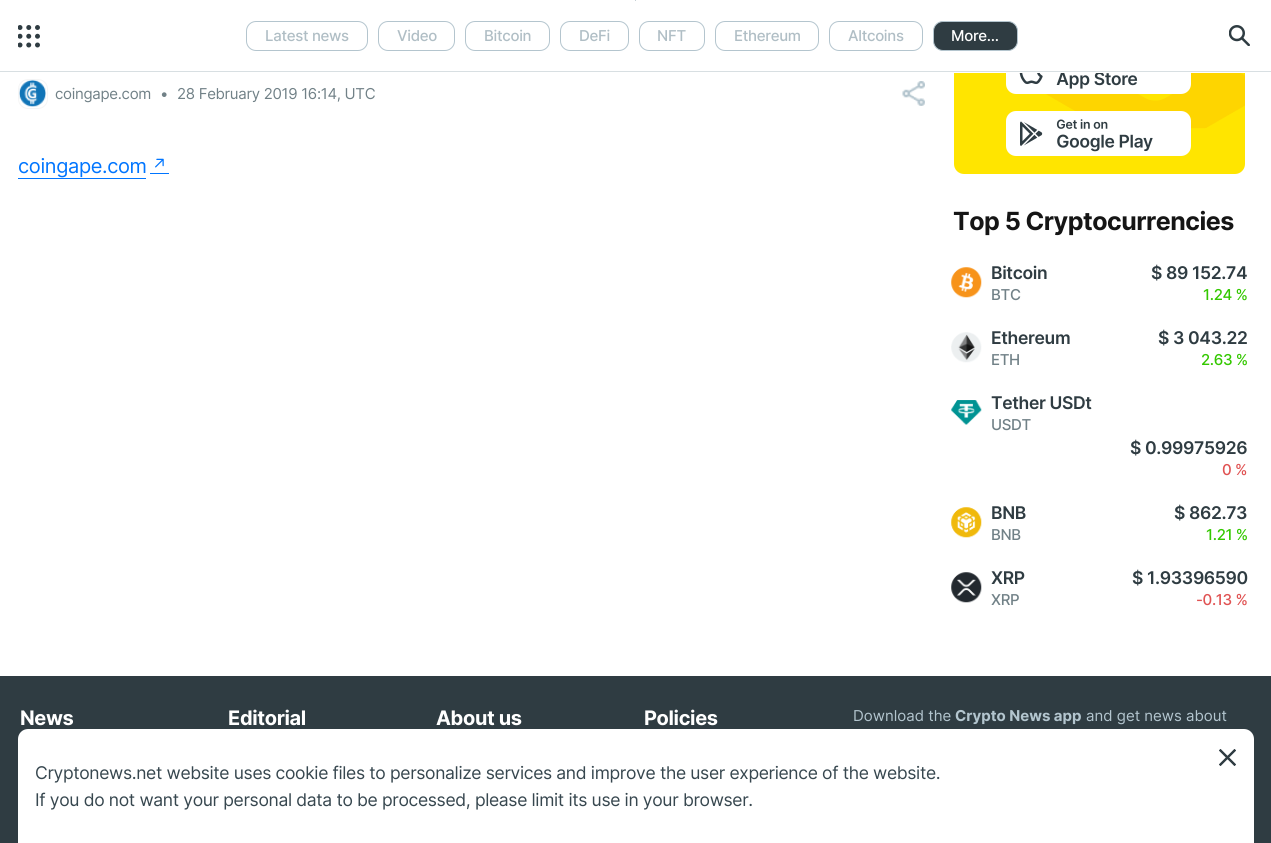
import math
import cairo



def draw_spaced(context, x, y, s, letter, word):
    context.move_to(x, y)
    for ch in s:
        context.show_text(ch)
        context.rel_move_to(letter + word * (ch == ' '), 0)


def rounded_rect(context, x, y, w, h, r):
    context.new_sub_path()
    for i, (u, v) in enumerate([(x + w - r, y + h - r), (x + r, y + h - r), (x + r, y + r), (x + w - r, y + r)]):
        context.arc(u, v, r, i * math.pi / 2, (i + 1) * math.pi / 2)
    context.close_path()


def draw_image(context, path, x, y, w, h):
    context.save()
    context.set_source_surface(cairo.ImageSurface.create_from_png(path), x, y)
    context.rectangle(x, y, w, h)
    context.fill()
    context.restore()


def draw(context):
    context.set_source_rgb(1, 1, 1)
    context.paint()
    context.set_source_rgb(1, 229 / 255, 0)
    rounded_rect(context, 954, -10, 291, 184, 10)
    context.fill()
    context.set_source_rgb(1, 1, 1)
    context.rectangle(954, 0, 291, 73)
    context.fill()
    context.set_source_rgb(216 / 255, 223 / 255, 226 / 255)
    context.rectangle(0, 71, 1271, 1)
    context.fill()
    context.set_source_rgb(176 / 255, 190 / 255, 197 / 255)
    context.arc(635.5, 0.5, 0.5, 0, 2 * math.pi)
    context.fill()
    draw_image(context, "images/1.png", 18, 25, 22, 23)
    rounded_rect(context, 246.5, 21.5, 121, 29, 9.5)
    context.set_source_rgb(180 / 255, 197 / 255, 206 / 255)
    context.set_line_width(1)
    context.stroke()
    rounded_rect(context, 378.5, 21.5, 76, 29, 9.5)
    context.stroke()
    rounded_rect(context, 465.5, 21.5, 84, 29, 9.5)
    context.stroke()
    rounded_rect(context, 560.5, 21.5, 68, 29, 9.5)
    context.stroke()
    rounded_rect(context, 639.5, 21.5, 65, 29, 9.5)
    context.stroke()
    rounded_rect(context, 715.5, 21.5, 103, 29, 9.5)
    context.stroke()
    rounded_rect(context, 829.5, 21.5, 93, 29, 9.5)
    context.stroke()
    context.set_source_rgb(47 / 255, 60 / 255, 66 / 255)
    rounded_rect(context, 933.5, 21.5, 84, 29, 9.5)
    context.fill_preserve()
    context.set_source_rgb(180 / 255, 197 / 255, 206 / 255)
    context.stroke()
    draw_image(context, "images/2.png", 1229, 25, 21, 21)
    rounded_rect(context, 18.5, 79.5, 29, 29, 9.5)
    context.set_source_rgb(245 / 255, 245 / 255, 245 / 255)
    context.stroke()
    draw_image(context, "images/3.png", 19, 79, 28, 28)
    draw_image(context, "images/4.png", 902, 81, 23, 25)
    context.set_source_rgb(0, 117 / 255, 1)
    context.rectangle(18, 178, 128, 1)
    context.fill()
    context.rectangle(150, 173, 19, 1)
    context.fill()
    draw_image(context, "images/5.png", 155, 158, 9, 10)
    draw_image(context, "images/6.png", 1046, 73, 199, 56)
    draw_image(context, "images/7.png", 1006, 73, 185, 21)
    draw_image(context, "images/8.png", 1006, 111, 185, 45)
    draw_image(context, "images/9.png", 951, 267, 31, 31)
    draw_image(context, "images/10.png", 951, 332, 31, 31)
    draw_image(context, "images/11.png", 951, 400, 31, 25)
    draw_image(context, "images/12.png", 951, 507, 31, 31)
    draw_image(context, "images/13.png", 951, 572, 31, 31)
    context.set_source_rgb(47 / 255, 60 / 255, 66 / 255)
    context.rectangle(0, 676, 1271, 167)
    context.fill()
    context.set_source_rgb(1, 1, 1)
    context.new_path()
    context.move_to(28, 729)
    context.line_to(1244, 729)
    context.curve_to(1249.5, 729, 1254, 733.5, 1254, 739)
    context.line_to(1254, 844)
    context.line_to(18, 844)
    context.line_to(18, 739)
    context.curve_to(18, 733.5, 22.5, 729, 28, 729)
    context.close_path()
    context.fill()
    draw_image(context, "images/14.png", 1219, 749, 17, 17)
    context.select_font_face("Inter Medium")
    context.set_font_size(15)
    context.set_source_rgb(176 / 255, 190 / 255, 197 / 255)
    draw_spaced(context, 265, 41, "Latest news", -0.3, 0)
    draw_spaced(context, 397, 41, "Video", -0.3, 0)
    draw_spaced(context, 484, 41, "Bitcoin", -0.3, 0)
    draw_spaced(context, 579, 41, "DeFi", -0.3, 0)
    draw_spaced(context, 657, 41, "NFT", -0.3, 0)
    draw_spaced(context, 734, 41, "Ethereum", -0.3, 0)
    draw_spaced(context, 848, 41, "Altcoins", -0.3, 0)
    context.set_source_rgb(1, 1, 1)
    draw_spaced(context, 951, 41, "More...", -0.3, 0)
    context.select_font_face("Inter")
    context.set_source_rgb(113 / 255, 129 / 255, 135 / 255)
    draw_spaced(context, 55, 99, "coingape.com", -0.3, 0)
    draw_spaced(context, 160, 99, "•", -0.3, 0)
    draw_spaced(context, 177, 99, "28 February 2019 16:14, UTC", -0.3, 0)
    context.set_font_size(20)
    context.set_source_rgb(0, 117 / 255, 1)
    draw_spaced(context, 18, 173, "coingape.com", -0.35, 0)
    context.select_font_face("Inter", cairo.FontSlant.NORMAL, cairo.FontWeight.BOLD)
    context.set_font_size(25)
    context.set_source_rgb(21 / 255, 21 / 255, 21 / 255)
    draw_spaced(context, 953, 230, "Top 5 Cryptocurrencies", -0.5, 0)
    context.select_font_face("Inter SemiBold")
    context.set_font_size(17.5)
    context.set_source_rgb(47 / 255, 60 / 255, 66 / 255)
    draw_spaced(context, 991, 279, "Bitcoin", -0.35, 0)
    context.select_font_face("Inter Medium")
    context.set_font_size(15)
    context.set_source_rgb(113 / 255, 129 / 255, 135 / 255)
    draw_spaced(context, 991, 300, "BTC", -0.35, 0)
    context.select_font_face("Inter SemiBold")
    context.set_font_size(17.5)
    context.set_source_rgb(47 / 255, 60 / 255, 66 / 255)
    draw_spaced(context, 1151, 279, "$ 89 152.74", -0.35, 0)
    context.select_font_face("Inter Medium")
    context.set_font_size(15)
    context.set_source_rgb(52 / 255, 200 / 255, 0)
    draw_spaced(context, 1203, 300, "1.24 %", -0.35, 0)
    context.select_font_face("Inter SemiBold")
    context.set_font_size(17.5)
    context.set_source_rgb(47 / 255, 60 / 255, 66 / 255)
    draw_spaced(context, 991, 344, "Ethereum", -0.35, 0)
    context.select_font_face("Inter Medium")
    context.set_font_size(15)
    context.set_source_rgb(113 / 255, 129 / 255, 135 / 255)
    draw_spaced(context, 991, 365, "ETH", -0.35, 0)
    context.select_font_face("Inter SemiBold")
    context.set_font_size(17.5)
    context.set_source_rgb(47 / 255, 60 / 255, 66 / 255)
    draw_spaced(context, 1158, 344, "$ 3 043.22", -0.35, 0)
    context.select_font_face("Inter Medium")
    context.set_font_size(15)
    context.set_source_rgb(52 / 255, 200 / 255, 0)
    draw_spaced(context, 1201, 365, "2.63 %", -0.35, 0)
    context.select_font_face("Inter SemiBold")
    context.set_font_size(17.5)
    context.set_source_rgb(47 / 255, 60 / 255, 66 / 255)
    draw_spaced(context, 991, 409, "Tether USDt", -0.35, 0)
    context.select_font_face("Inter Medium")
    context.set_font_size(15)
    context.set_source_rgb(113 / 255, 129 / 255, 135 / 255)
    draw_spaced(context, 991, 430, "USDT", -0.35, 0)
    context.select_font_face("Inter SemiBold")
    context.set_font_size(17.5)
    context.set_source_rgb(47 / 255, 60 / 255, 66 / 255)
    draw_spaced(context, 1130, 454, "$ 0.99975926", -0.35, 0)
    context.select_font_face("Inter Medium")
    context.set_font_size(15)
    context.set_source_rgb(224 / 255, 83 / 255, 83 / 255)
    draw_spaced(context, 1222, 475, "0 %", -0.35, 0)
    context.select_font_face("Inter SemiBold")
    context.set_font_size(17.5)
    context.set_source_rgb(47 / 255, 60 / 255, 66 / 255)
    draw_spaced(context, 991, 519, "BNB", -0.35, 0)
    context.select_font_face("Inter Medium")
    context.set_font_size(15)
    context.set_source_rgb(113 / 255, 129 / 255, 135 / 255)
    draw_spaced(context, 991, 540, "BNB", -0.35, 0)
    context.select_font_face("Inter SemiBold")
    context.set_font_size(17.5)
    context.set_source_rgb(47 / 255, 60 / 255, 66 / 255)
    draw_spaced(context, 1174, 519, "$ 862.73", -0.35, 0)
    context.select_font_face("Inter Medium")
    context.set_font_size(15)
    context.set_source_rgb(52 / 255, 200 / 255, 0)
    draw_spaced(context, 1206, 540, "1.21 %", -0.35, 0)
    context.select_font_face("Inter SemiBold")
    context.set_font_size(17.5)
    context.set_source_rgb(47 / 255, 60 / 255, 66 / 255)
    draw_spaced(context, 991, 584, "XRP", -0.35, 0)
    context.select_font_face("Inter Medium")
    context.set_font_size(15)
    context.set_source_rgb(113 / 255, 129 / 255, 135 / 255)
    draw_spaced(context, 991, 605, "XRP", -0.35, 0)
    context.select_font_face("Inter SemiBold")
    context.set_font_size(17.5)
    context.set_source_rgb(47 / 255, 60 / 255, 66 / 255)
    draw_spaced(context, 1132, 584, "$ 1.93396590", -0.35, 0)
    context.select_font_face("Inter Medium")
    context.set_font_size(15)
    context.set_source_rgb(224 / 255, 83 / 255, 83 / 255)
    draw_spaced(context, 1196, 605, "-0.13 %", -0.35, 0)
    context.select_font_face("Inter", cairo.FontSlant.NORMAL, cairo.FontWeight.BOLD)
    context.set_font_size(20)
    context.set_source_rgb(1, 1, 1)
    draw_spaced(context, 20, 725, "News", -0.35, 0)
    draw_spaced(context, 228, 725, "Editorial", -0.35, 0)
    draw_spaced(context, 436, 725, "About us", -0.35, 0)
    draw_spaced(context, 644, 725, "Policies", -0.35, 0)
    context.select_font_face("Inter")
    context.set_font_size(15)
    context.set_source_rgb(179 / 255, 197 / 255, 206 / 255)
    context.move_to(853, 721)
    context.show_text("Download the")
    context.select_font_face("Inter", cairo.FontSlant.NORMAL, cairo.FontWeight.BOLD)
    context.move_to(955, 721)
    context.show_text("Crypto News app")
    context.select_font_face("Inter")
    context.move_to(1086, 721)
    context.show_text("and get news about")
    context.set_font_size(17.5)
    context.set_source_rgb(55 / 255, 71 / 255, 79 / 255)
    draw_spaced(context, 35, 779, "Cryptonews.net website uses cookie files to personalize services and improve the user experience of the website.", -0.35, 0)
    draw_spaced(context, 35, 806, "If you do not want your personal data to be processed, please limit its use in your browser.", -0.35, 0)


surface = cairo.ImageSurface(cairo.Format.RGB24, 1271, 843)
context = cairo.Context(surface)
options = cairo.FontOptions()
options.set_hint_metrics(cairo.HintMetrics.OFF)
options.set_hint_style(cairo.HintStyle.NONE)
context.set_font_options(options)
context.set_miter_limit(4)
draw(context)
surface.write_to_png("out.png")
